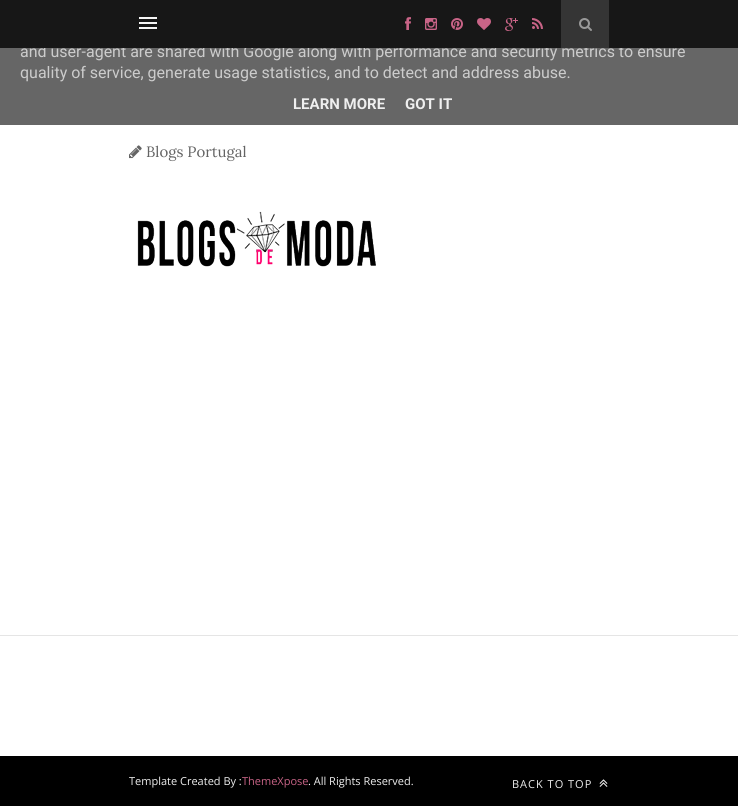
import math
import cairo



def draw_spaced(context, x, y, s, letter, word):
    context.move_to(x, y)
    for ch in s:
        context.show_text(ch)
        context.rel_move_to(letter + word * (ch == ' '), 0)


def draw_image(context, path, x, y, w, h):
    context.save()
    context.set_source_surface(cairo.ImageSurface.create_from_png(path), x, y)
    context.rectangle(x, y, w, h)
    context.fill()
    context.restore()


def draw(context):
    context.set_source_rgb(1, 1, 1)
    context.paint()
    context.set_source_rgb(102 / 255, 102 / 255, 102 / 255)
    context.rectangle(0, 48, 738, 77)
    context.fill()
    draw_image(context, "images/8.png", 129, 145, 13, 14)
    draw_image(context, "images/9.png", 137, 211, 239, 56)
    context.set_source_rgb(229 / 255, 229 / 255, 229 / 255)
    context.rectangle(0, 635, 738, 1)
    context.fill()
    context.set_source_rgb(0, 0, 0)
    context.rectangle(0, 756, 738, 50)
    context.fill()
    draw_image(context, "images/10.png", 599, 779, 9, 8)
    context.select_font_face("Roboto")
    context.set_font_size(16)
    context.set_source_rgb(204 / 255, 204 / 255, 204 / 255)
    context.move_to(20, 57)
    context.show_text("and user-agent are shared with Google along with performance and security metrics to ensure")
    context.set_source_rgb(23 / 255, 23 / 255, 23 / 255)
    context.rectangle(0, 0, 738, 48)
    context.fill()
    draw_image(context, "images/6.png", 532, 18, 11, 11)
    draw_image(context, "images/5.png", 505, 18, 13, 13)
    draw_image(context, "images/4.png", 477, 18, 14, 12)
    draw_image(context, "images/3.png", 451, 18, 12, 12)
    draw_image(context, "images/2.png", 425, 18, 12, 12)
    draw_image(context, "images/1.png", 405, 17, 6, 13)
    context.set_source_rgb(53 / 255, 53 / 255, 53 / 255)
    context.rectangle(561, 0, 48, 48)
    context.fill()
    draw_image(context, "images/7.png", 579, 18, 13, 13)
    context.set_source_rgb(245 / 255, 245 / 255, 245 / 255)
    context.rectangle(139, 27, 18, 2)
    context.fill()
    context.rectangle(139, 22, 18, 2)
    context.fill()
    context.rectangle(139, 17, 18, 2)
    context.fill()
    context.set_source_rgb(204 / 255, 204 / 255, 204 / 255)
    context.move_to(20, 78)
    context.show_text("quality of service, generate usage statistics, and to detect and address abuse.")
    context.select_font_face("Roboto", cairo.FontSlant.NORMAL, cairo.FontWeight.BOLD)
    context.set_font_size(15)
    context.set_source_rgb(239 / 255, 239 / 255, 239 / 255)
    context.move_to(293, 109)
    context.show_text("LEARN MORE")
    context.move_to(405, 109)
    context.show_text("GOT IT")
    context.select_font_face("Lora")
    context.set_source_rgb(100 / 255, 100 / 255, 100 / 255)
    context.move_to(146, 157)
    context.show_text("Blogs Portugal")
    context.select_font_face("Open Sans")
    context.set_font_size(11)
    context.set_source_rgb(239 / 255, 239 / 255, 239 / 255)
    context.move_to(129, 785)
    context.show_text("Template Created By :")
    context.set_source_rgb(201 / 255, 100 / 255, 135 / 255)
    context.move_to(242, 785)
    context.show_text("ThemeXpose")
    context.set_source_rgb(239 / 255, 239 / 255, 239 / 255)
    context.move_to(308, 785)
    context.show_text(". All Rights Reserved.")
    draw_spaced(context, 512, 788, "BACK TO TOP", 1, 0)


surface = cairo.ImageSurface(cairo.Format.RGB24, 738, 806)
context = cairo.Context(surface)
options = cairo.FontOptions()
options.set_hint_metrics(cairo.HintMetrics.OFF)
options.set_hint_style(cairo.HintStyle.NONE)
context.set_font_options(options)
context.set_miter_limit(4)
draw(context)
surface.write_to_png("out.png")
